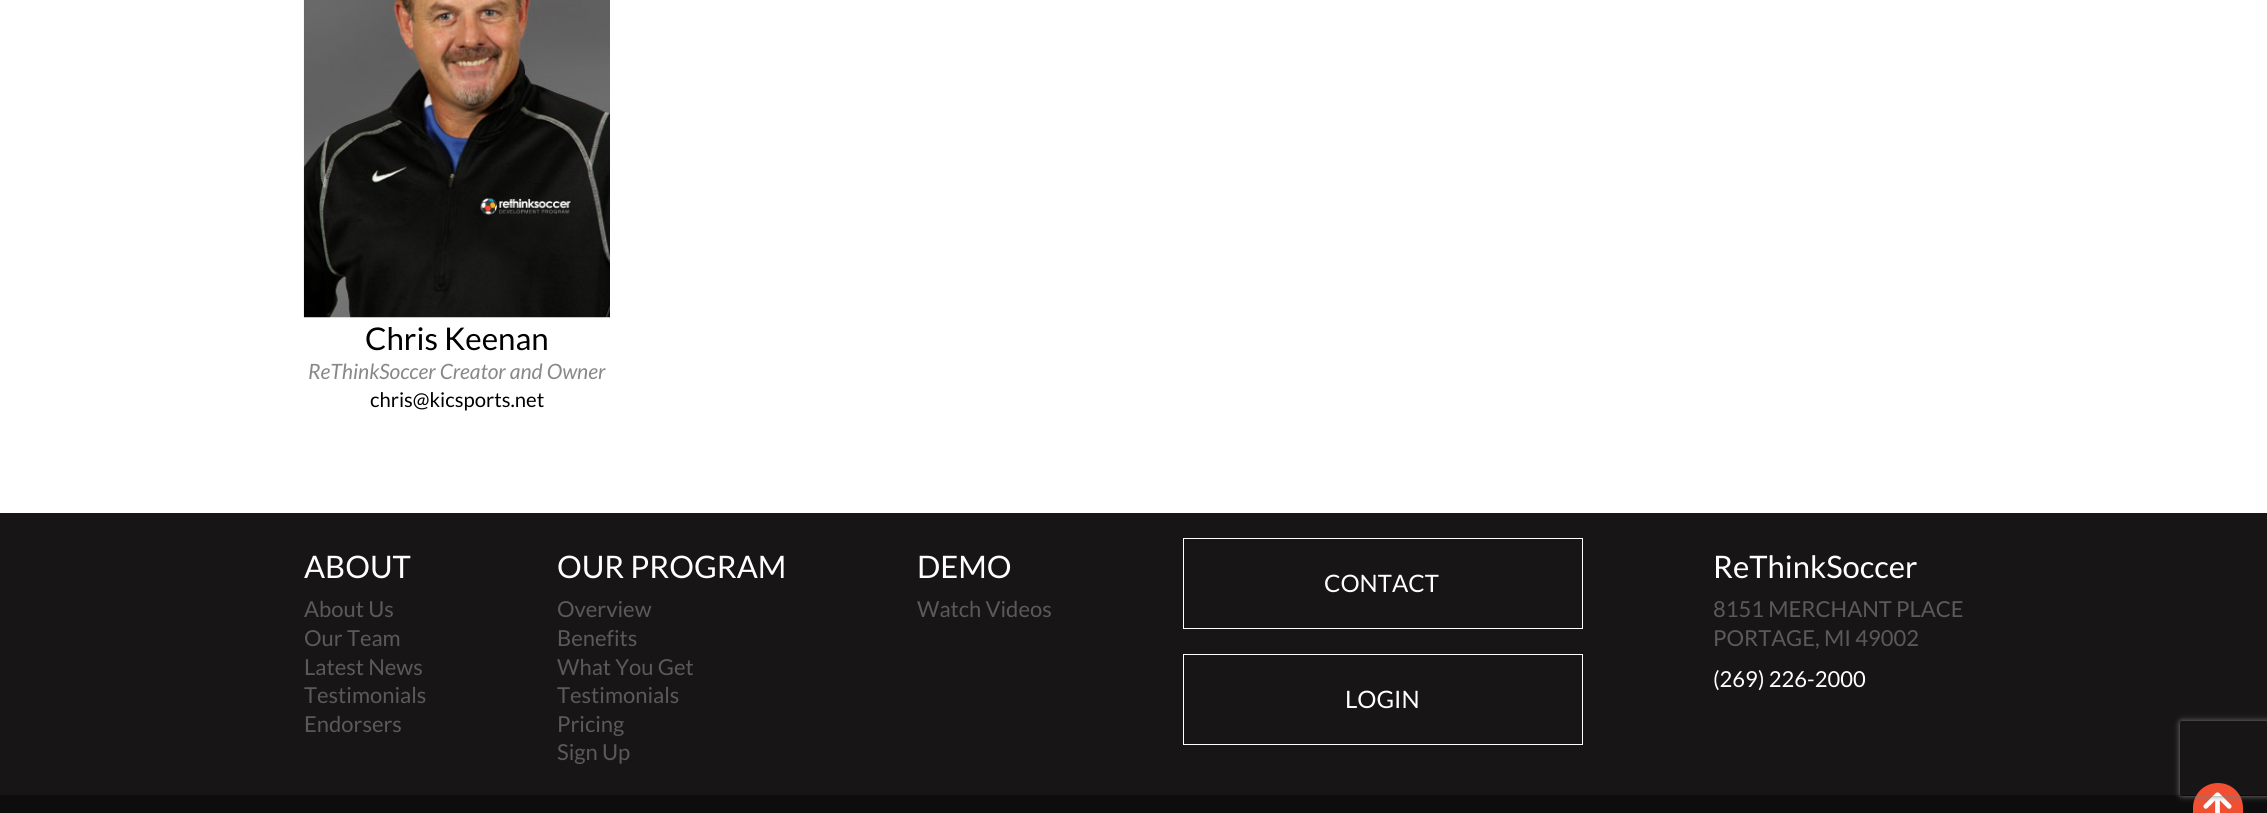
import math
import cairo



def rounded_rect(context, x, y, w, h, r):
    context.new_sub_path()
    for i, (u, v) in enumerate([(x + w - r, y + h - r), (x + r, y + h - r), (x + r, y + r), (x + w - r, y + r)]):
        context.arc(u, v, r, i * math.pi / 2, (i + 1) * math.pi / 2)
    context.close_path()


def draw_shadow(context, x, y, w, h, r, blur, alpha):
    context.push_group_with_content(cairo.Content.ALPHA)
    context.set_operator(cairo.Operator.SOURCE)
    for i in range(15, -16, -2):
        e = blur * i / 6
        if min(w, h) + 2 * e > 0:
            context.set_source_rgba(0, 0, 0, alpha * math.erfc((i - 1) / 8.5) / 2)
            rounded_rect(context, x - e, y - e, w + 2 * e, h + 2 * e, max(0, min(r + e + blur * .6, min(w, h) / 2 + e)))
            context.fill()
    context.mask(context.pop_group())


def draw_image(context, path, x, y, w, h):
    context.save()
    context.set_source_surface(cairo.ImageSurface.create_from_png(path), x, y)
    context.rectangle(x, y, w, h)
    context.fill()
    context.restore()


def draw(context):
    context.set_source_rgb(1, 1, 1)
    context.paint()
    draw_image(context, "images/1.png", 303, 0, 307, 318)
    context.set_source_rgb(23 / 255, 21 / 255, 22 / 255)
    context.rectangle(0, 513, 2267, 282)
    context.fill()
    context.rectangle(1183.5, 538.5, 399, 90)
    context.set_source_rgb(1, 1, 1)
    context.set_line_width(1)
    context.stroke()
    context.rectangle(1183.5, 654.5, 399, 90)
    context.stroke()
    context.set_source_rgb(14 / 255, 13 / 255, 13 / 255)
    context.rectangle(0, 795, 2267, 18)
    context.fill()
    context.set_source_rgb(240 / 255, 79 / 255, 50 / 255)
    context.new_path()
    context.move_to(2218, 783)
    context.curve_to(2232, 783, 2243, 794, 2243, 808)
    context.line_to(2243, 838)
    context.line_to(2193, 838)
    context.line_to(2193, 808)
    context.curve_to(2193, 794, 2204, 783, 2218, 783)
    context.close_path()
    context.fill()
    draw_image(context, "images/2.png", 2203, 792, 29, 21)
    context.save()
    context.set_fill_rule(cairo.FillRule.EVEN_ODD)
    context.new_path()
    context.move_to(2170, 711)
    context.line_to(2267, 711)
    context.line_to(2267, 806)
    context.line_to(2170, 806)
    context.close_path()
    context.move_to(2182.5, 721)
    context.line_to(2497.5, 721)
    context.curve_to(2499, 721, 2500, 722, 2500, 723.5)
    context.line_to(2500, 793.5)
    context.curve_to(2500, 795, 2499, 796, 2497.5, 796)
    context.line_to(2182.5, 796)
    context.curve_to(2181, 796, 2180, 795, 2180, 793.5)
    context.line_to(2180, 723.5)
    context.curve_to(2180, 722, 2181, 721, 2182.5, 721)
    context.close_path()
    context.clip()
    context.set_source_rgb(128 / 255, 128 / 255, 128 / 255)
    draw_shadow(context, 2180, 721, 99, 75, 2.5, 3, 1)
    context.restore()
    context.select_font_face("Lato")
    context.set_font_size(31.25)
    context.set_source_rgb(0, 0, 0)
    context.move_to(365, 350)
    context.show_text("Chris Keenan")
    context.select_font_face("Lato", cairo.FontSlant.ITALIC)
    context.set_font_size(21.1)
    context.set_source_rgb(136 / 255, 136 / 255, 136 / 255)
    context.move_to(308, 379)
    context.show_text("ReThinkSoccer Creator and Owner")
    context.select_font_face("Lato")
    context.set_font_size(20.25)
    context.set_source_rgb(0, 0, 0)
    context.move_to(370, 407)
    context.show_text("chris@kicsports.net")
    context.set_font_size(31)
    context.set_source_rgb(1, 1, 1)
    context.move_to(304, 578)
    context.show_text("ABOUT")
    context.set_font_size(22)
    context.set_source_rgb(90 / 255, 90 / 255, 90 / 255)
    context.move_to(304, 617)
    context.show_text("About Us")
    context.move_to(304, 646)
    context.show_text("Our Team")
    context.move_to(304, 675)
    context.show_text("Latest News")
    context.move_to(304, 703)
    context.show_text("Testimonials")
    context.move_to(304, 732)
    context.show_text("Endorsers")
    context.set_font_size(31)
    context.set_source_rgb(1, 1, 1)
    context.move_to(557, 578)
    context.show_text("OUR PROGRAM")
    context.set_font_size(22)
    context.set_source_rgb(90 / 255, 90 / 255, 90 / 255)
    context.move_to(557, 617)
    context.show_text("Overview")
    context.move_to(557, 646)
    context.show_text("Benefits")
    context.move_to(557, 675)
    context.show_text("What You Get")
    context.move_to(557, 703)
    context.show_text("Testimonials")
    context.move_to(557, 732)
    context.show_text("Pricing")
    context.move_to(557, 760)
    context.show_text("Sign Up")
    context.set_font_size(31)
    context.set_source_rgb(1, 1, 1)
    context.move_to(917, 578)
    context.show_text("DEMO")
    context.set_font_size(22)
    context.set_source_rgb(90 / 255, 90 / 255, 90 / 255)
    context.move_to(917, 617)
    context.show_text("Watch Videos")
    context.set_font_size(24)
    context.set_source_rgb(1, 1, 1)
    context.move_to(1324, 592)
    context.show_text("CONTACT")
    context.move_to(1345, 708)
    context.show_text("LOGIN")
    context.set_font_size(31)
    context.move_to(1713, 578)
    context.show_text("ReThinkSoccer")
    context.set_font_size(22)
    context.set_source_rgb(90 / 255, 90 / 255, 90 / 255)
    context.move_to(1713, 617)
    context.show_text("8151 MERCHANT PLACE")
    context.move_to(1713, 646)
    context.show_text("PORTAGE, MI 49002")
    context.set_source_rgb(1, 1, 1)
    context.move_to(1713, 687)
    context.show_text("(269) 226-2000")


surface = cairo.ImageSurface(cairo.Format.RGB24, 2267, 813)
context = cairo.Context(surface)
options = cairo.FontOptions()
options.set_hint_metrics(cairo.HintMetrics.OFF)
options.set_hint_style(cairo.HintStyle.NONE)
context.set_font_options(options)
context.set_miter_limit(4)
draw(context)
surface.write_to_png("out.png")
